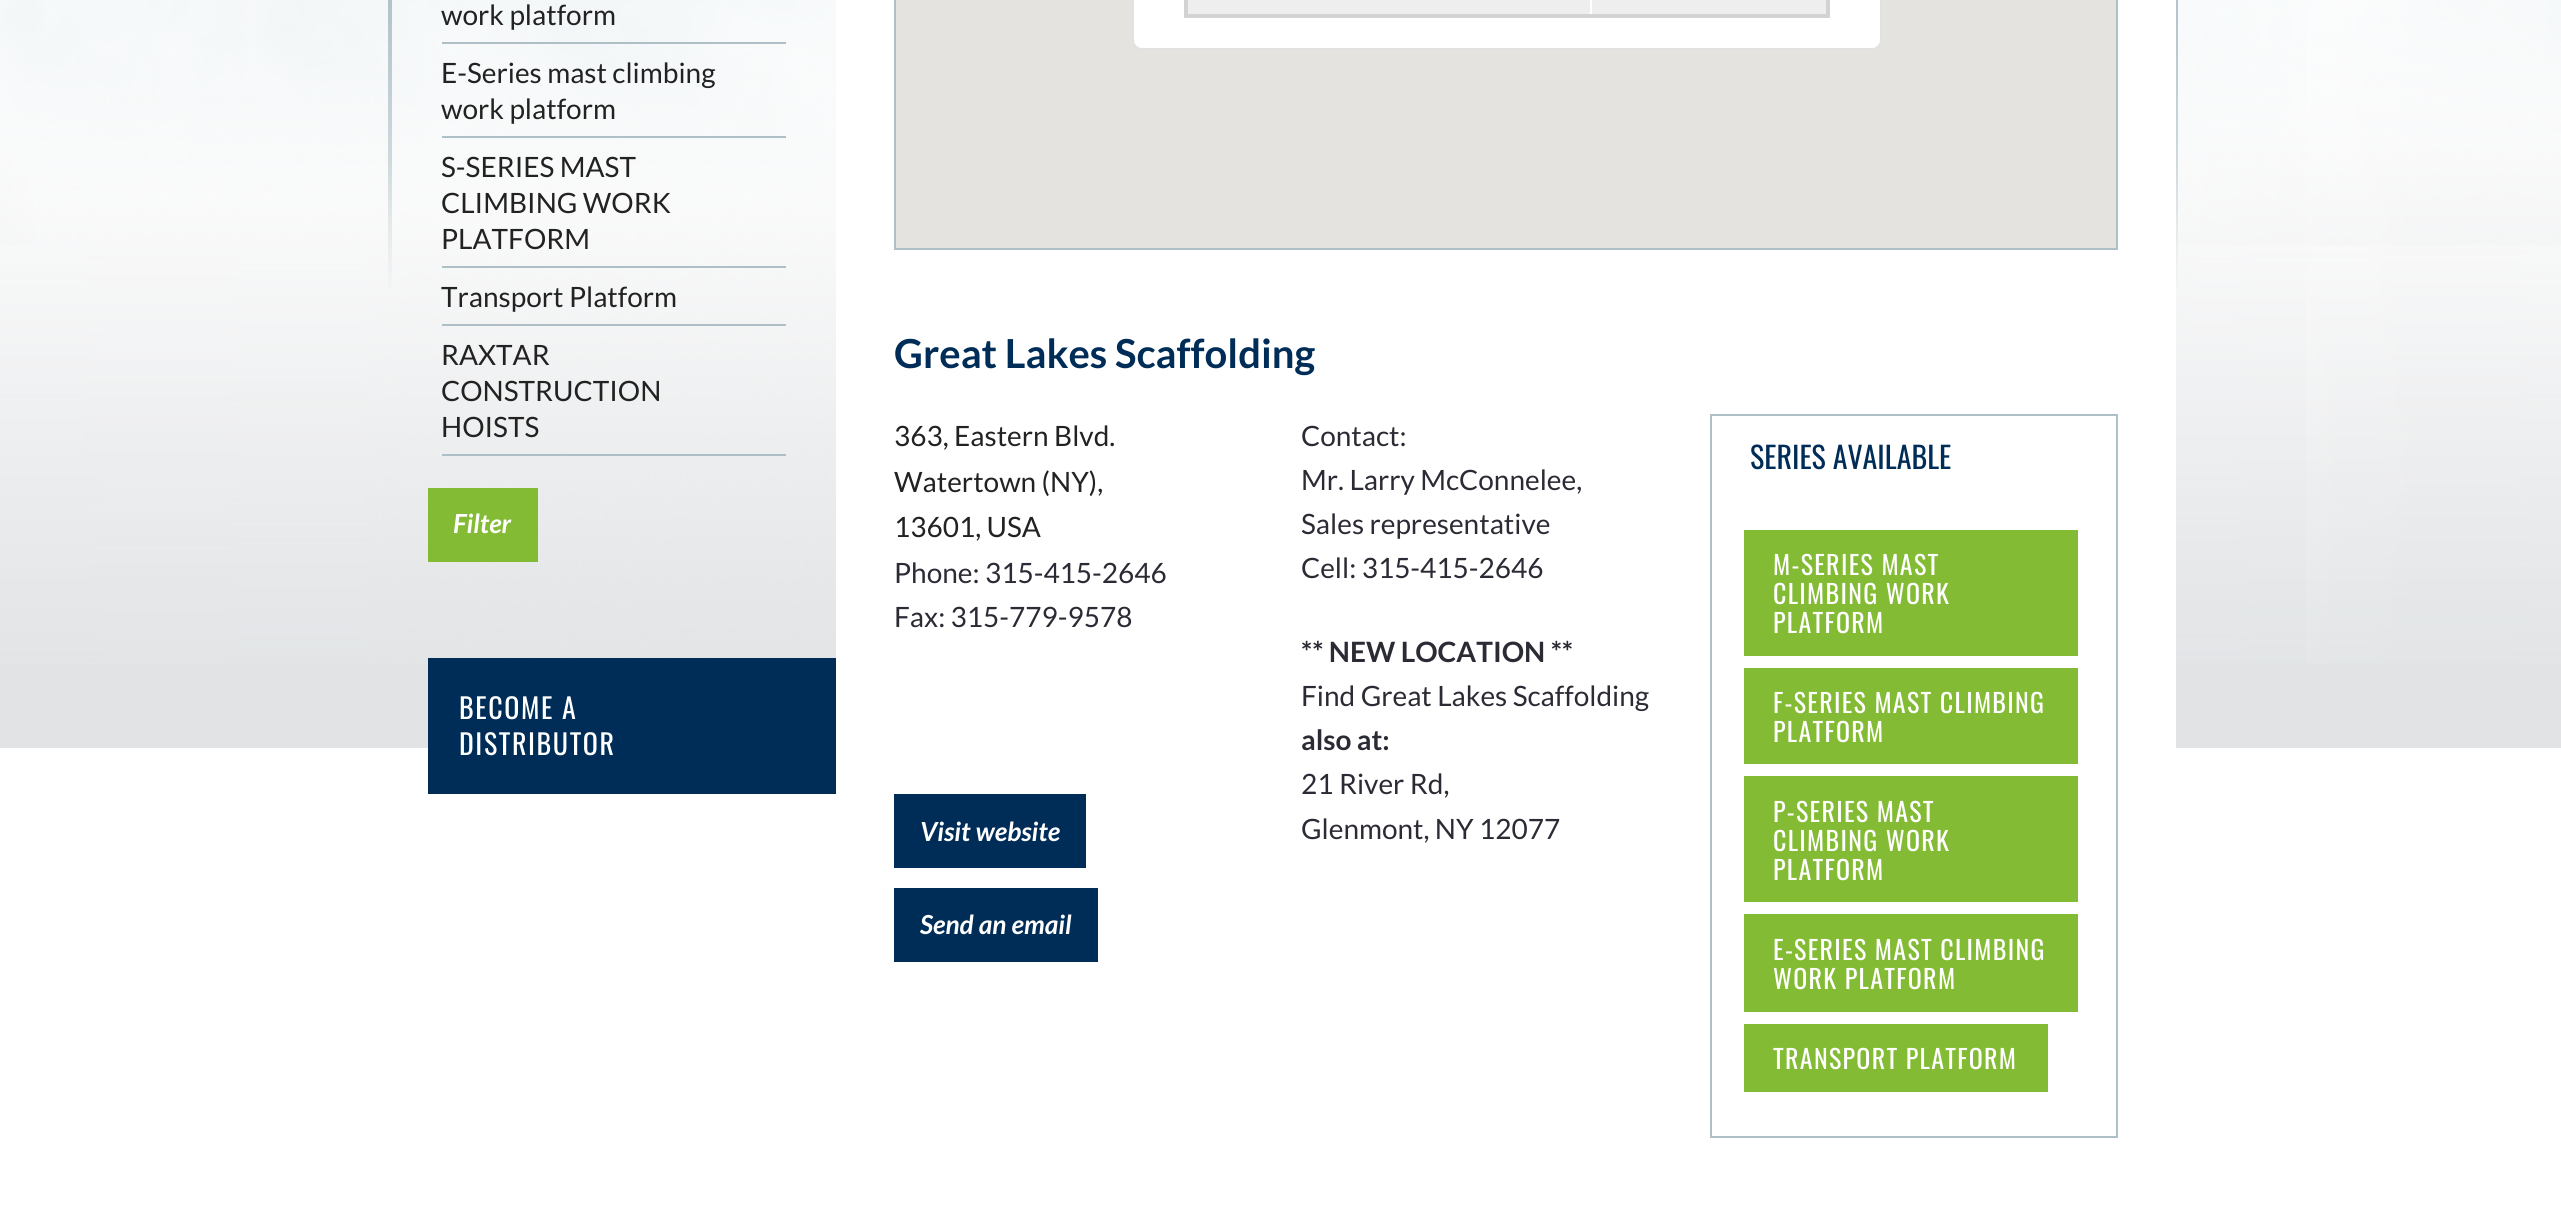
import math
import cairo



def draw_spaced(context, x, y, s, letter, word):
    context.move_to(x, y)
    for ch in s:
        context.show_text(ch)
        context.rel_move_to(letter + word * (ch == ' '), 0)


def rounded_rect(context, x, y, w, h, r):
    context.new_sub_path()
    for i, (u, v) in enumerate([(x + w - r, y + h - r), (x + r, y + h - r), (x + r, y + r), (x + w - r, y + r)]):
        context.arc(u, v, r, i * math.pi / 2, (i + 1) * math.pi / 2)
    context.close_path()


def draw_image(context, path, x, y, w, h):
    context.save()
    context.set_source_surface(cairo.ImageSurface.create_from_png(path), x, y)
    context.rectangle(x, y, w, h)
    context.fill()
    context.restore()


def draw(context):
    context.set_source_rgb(1, 1, 1)
    context.paint()
    context.set_source_rgb(225 / 255, 227 / 255, 228 / 255)
    context.rectangle(0, 664, 2561, 84)
    context.fill()
    draw_image(context, "images/1.png", 0, 0, 2561, 664)
    draw_image(context, "images/2.png", 388, 0, 4, 289)
    draw_image(context, "images/3.png", 2176, 0, 2, 289)
    context.set_source_rgb(174 / 255, 191 / 255, 197 / 255)
    context.rectangle(442, 42, 344, 2)
    context.fill()
    context.rectangle(442, 136, 344, 2)
    context.fill()
    context.rectangle(442, 266, 344, 2)
    context.fill()
    context.rectangle(442, 324, 344, 2)
    context.fill()
    context.rectangle(442, 454, 344, 2)
    context.fill()
    context.set_source_rgb(131 / 255, 188 / 255, 52 / 255)
    context.rectangle(428, 488, 110, 74)
    context.fill()
    context.set_source_rgb(0, 45 / 255, 87 / 255)
    context.rectangle(428, 658, 408, 136)
    context.fill()
    context.set_source_rgb(1, 1, 1)
    context.rectangle(836, 0, 1340, 748)
    context.fill()
    context.rectangle(895, -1, 1222, 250)
    context.set_source_rgb(174 / 255, 191 / 255, 197 / 255)
    context.stroke()
    context.set_source_rgb(229 / 255, 227 / 255, 223 / 255)
    context.rectangle(896, 0, 1220, 248)
    context.fill()
    context.set_source_rgb(1, 1, 1)
    rounded_rect(context, 1132, -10, 750, 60, 10)
    context.fill()
    rounded_rect(context, 1133, -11, 748, 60, 9)
    context.set_source_rgba(0, 0, 0, 0.12)
    context.stroke()
    context.set_source_rgb(209 / 255, 211 / 255, 212 / 255)
    context.rectangle(1826, 0, 4, 18)
    context.fill()
    context.rectangle(1184, 14, 646, 4)
    context.fill()
    context.rectangle(1184, 0, 4, 18)
    context.fill()
    context.set_source_rgb(238 / 255, 238 / 255, 239 / 255)
    context.rectangle(1188, 0, 402, 14)
    context.fill()
    context.rectangle(1592, 0, 234, 14)
    context.fill()
    context.set_source_rgb(0, 45 / 255, 87 / 255)
    context.rectangle(894, 794, 192, 74)
    context.fill()
    context.rectangle(894, 888, 204, 74)
    context.fill()
    context.rectangle(1711, 415, 406, 722)
    context.set_source_rgb(174 / 255, 191 / 255, 197 / 255)
    context.stroke()
    context.set_source_rgb(131 / 255, 188 / 255, 52 / 255)
    context.rectangle(1744, 530, 334, 126)
    context.fill()
    context.rectangle(1744, 668, 334, 96)
    context.fill()
    context.rectangle(1744, 776, 334, 126)
    context.fill()
    context.rectangle(1744, 914, 334, 98)
    context.fill()
    context.rectangle(1744, 1024, 304, 68)
    context.fill()
    context.select_font_face("Lato")
    context.set_font_size(28)
    context.set_source_rgb(34 / 255, 34 / 255, 34 / 255)
    context.move_to(441, 25)
    context.show_text("work platform")
    context.move_to(441, 83)
    context.show_text("E-Series mast climbing")
    context.move_to(441, 119)
    context.show_text("work platform")
    context.move_to(441, 177)
    context.show_text("S-SERIES MAST")
    context.move_to(441, 213)
    context.show_text("CLIMBING WORK")
    context.move_to(441, 249)
    context.show_text("PLATFORM")
    context.move_to(441, 307)
    context.show_text("Transport Platform")
    context.move_to(441, 365)
    context.show_text("RAXTAR")
    context.move_to(441, 401)
    context.show_text("CONSTRUCTION")
    context.move_to(441, 437)
    context.show_text("HOISTS")
    context.select_font_face("Lato", cairo.FontSlant.ITALIC, cairo.FontWeight.BOLD)
    context.set_font_size(26.25)
    context.set_source_rgb(1, 1, 1)
    context.move_to(453, 533)
    context.show_text("Filter")
    context.select_font_face("Oswald")
    context.set_font_size(28)
    draw_spaced(context, 459, 719, "BECOME A", 1.6, 0)
    draw_spaced(context, 459, 755, "DISTRIBUTOR", 1.6, 0)
    context.select_font_face("Lato", cairo.FontSlant.NORMAL, cairo.FontWeight.BOLD)
    context.set_font_size(40)
    context.set_source_rgb(0, 45 / 255, 87 / 255)
    context.move_to(894, 368)
    context.show_text("Great Lakes Scaffolding")
    context.select_font_face("Lato")
    context.set_font_size(28)
    context.set_source_rgb(34 / 255, 34 / 255, 34 / 255)
    context.move_to(894, 446)
    context.show_text("363, Eastern Blvd.")
    context.move_to(894, 492)
    context.show_text("Watertown (NY),")
    context.move_to(894, 537)
    context.show_text("13601, USA")
    context.set_source_rgb(43 / 255, 43 / 255, 53 / 255)
    context.move_to(894, 583)
    context.show_text("Phone: 315-415-2646")
    context.move_to(894, 627)
    context.show_text("Fax: 315-779-9578")
    context.select_font_face("Lato", cairo.FontSlant.ITALIC, cairo.FontWeight.BOLD)
    context.set_font_size(26.25)
    context.set_source_rgb(1, 1, 1)
    context.move_to(920, 841)
    context.show_text("Visit website")
    context.move_to(920, 934)
    context.show_text("Send an email")
    context.select_font_face("Lato")
    context.set_font_size(28)
    context.set_source_rgb(43 / 255, 43 / 255, 53 / 255)
    context.move_to(1301, 446)
    context.show_text("Contact:")
    context.move_to(1301, 490)
    context.show_text("Mr. Larry McConnelee,")
    context.move_to(1301, 534)
    context.show_text("Sales representative")
    context.move_to(1301, 578)
    context.show_text("Cell: 315-415-2646")
    context.select_font_face("Lato", cairo.FontSlant.NORMAL, cairo.FontWeight.BOLD)
    context.move_to(1301, 662)
    context.show_text("** NEW LOCATION **")
    context.select_font_face("Lato")
    context.move_to(1301, 706)
    context.show_text("Find Great Lakes Scaffolding")
    context.select_font_face("Lato", cairo.FontSlant.NORMAL, cairo.FontWeight.BOLD)
    context.move_to(1301, 750)
    context.show_text("also at:")
    context.select_font_face("Lato")
    context.move_to(1301, 794)
    context.show_text("21 River Rd,")
    context.move_to(1301, 839)
    context.show_text("Glenmont, NY 12077")
    context.select_font_face("Oswald")
    context.set_font_size(30)
    context.set_source_rgb(0, 45 / 255, 87 / 255)
    context.move_to(1750, 469)
    context.show_text("SERIES AVAILABLE")
    context.set_font_size(26)
    context.set_source_rgb(1, 1, 1)
    draw_spaced(context, 1773, 575, "M-SERIES MAST", 1.3, 0)
    draw_spaced(context, 1773, 604, "CLIMBING WORK", 1.3, 0)
    draw_spaced(context, 1773, 633, "PLATFORM", 1.3, 0)
    draw_spaced(context, 1773, 713, "F-SERIES MAST CLIMBING", 1.3, 0)
    draw_spaced(context, 1773, 742, "PLATFORM", 1.3, 0)
    draw_spaced(context, 1773, 822, "P-SERIES MAST", 1.3, 0)
    draw_spaced(context, 1773, 851, "CLIMBING WORK", 1.3, 0)
    draw_spaced(context, 1773, 880, "PLATFORM", 1.3, 0)
    draw_spaced(context, 1773, 960, "E-SERIES MAST CLIMBING", 1.3, 0)
    draw_spaced(context, 1773, 989, "WORK PLATFORM", 1.3, 0)
    draw_spaced(context, 1773, 1069, "TRANSPORT PLATFORM", 1.3, 0)


surface = cairo.ImageSurface(cairo.Format.RGB24, 2561, 1224)
context = cairo.Context(surface)
options = cairo.FontOptions()
options.set_hint_metrics(cairo.HintMetrics.OFF)
options.set_hint_style(cairo.HintStyle.NONE)
context.set_font_options(options)
context.set_miter_limit(4)
draw(context)
surface.write_to_png("out.png")
